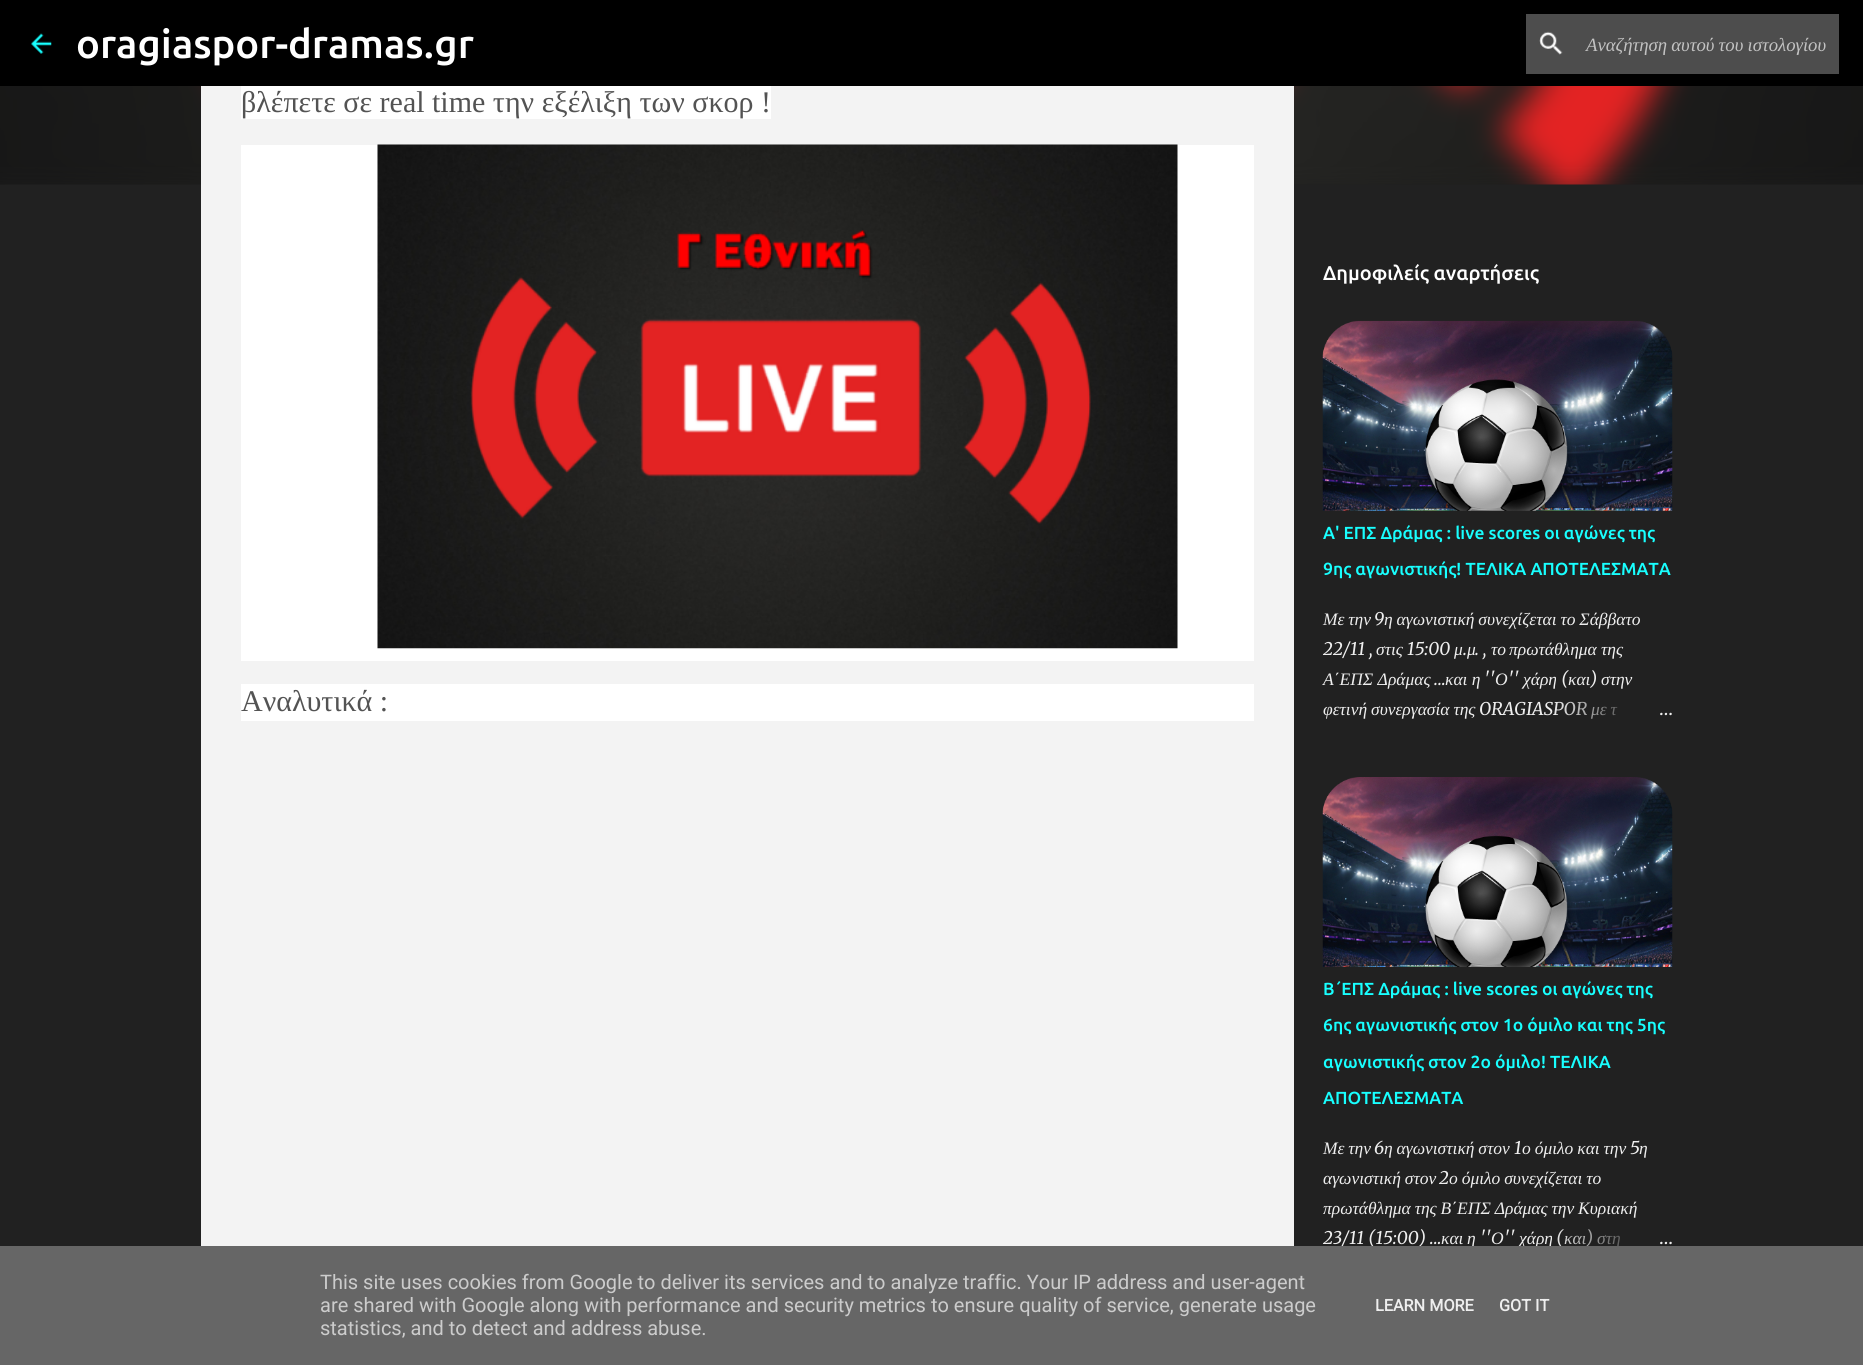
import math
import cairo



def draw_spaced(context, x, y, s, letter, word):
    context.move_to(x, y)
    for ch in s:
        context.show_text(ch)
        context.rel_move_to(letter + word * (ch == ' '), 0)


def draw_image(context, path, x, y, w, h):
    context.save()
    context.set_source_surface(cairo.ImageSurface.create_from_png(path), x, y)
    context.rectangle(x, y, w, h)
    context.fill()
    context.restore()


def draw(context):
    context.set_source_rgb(33 / 255, 33 / 255, 33 / 255)
    context.paint()
    context.set_source_rgb(0, 0, 0)
    context.rectangle(0, 0, 1863, 86)
    context.fill()
    draw_image(context, "images/1.png", 31, 33, 21, 21)
    context.set_source_rgb(77 / 255, 77 / 255, 77 / 255)
    context.rectangle(1526, 14, 313, 60)
    context.fill()
    draw_image(context, "images/2.png", 1539, 31, 24, 24)
    draw_image(context, "images/6.png", 0, 86, 1863, 99)
    context.set_source_rgb(243 / 255, 243 / 255, 243 / 255)
    context.rectangle(201, 86, 1093, 1160)
    context.fill()
    context.set_source_rgb(1, 1, 1)
    context.rectangle(241, 86, 530, 33)
    context.fill()
    context.rectangle(241, 145, 1013, 516)
    context.fill()
    draw_image(context, "images/3.png", 377, 144, 801, 505)
    context.rectangle(241, 684, 1013, 37)
    context.fill()
    draw_image(context, "images/4.png", 1322, 320, 351, 191)
    draw_image(context, "images/5.png", 1322, 777, 351, 190)
    context.select_font_face("Ubuntu Medium")
    context.set_font_size(40)
    context.move_to(76, 58)
    context.show_text("oragiaspor-dramas.gr")
    context.select_font_face("Liberation Serif", cairo.FontSlant.ITALIC)
    context.set_font_size(18.75)
    context.set_source_rgb(194 / 255, 194 / 255, 194 / 255)
    draw_spaced(context, 1586, 51, "Αναζήτηση αυτού του ιστολογίου", 0, -0.5)
    context.select_font_face("Liberation Serif")
    context.set_font_size(30)
    context.set_source_rgb(83 / 255, 83 / 255, 83 / 255)
    context.move_to(241, 112)
    context.show_text("βλέπετε σε real time την εξέλιξη των σκορ !")
    context.move_to(241, 711)
    context.show_text("Aναλυτικά :")
    context.select_font_face("Ubuntu Medium")
    context.set_font_size(20)
    context.set_source_rgb(1, 1, 1)
    context.move_to(1323, 280)
    context.show_text("Δημοφιλείς αναρτήσεις")
    context.set_font_size(17.5)
    context.set_source_rgb(24 / 255, 1, 1)
    context.move_to(1323, 539)
    context.show_text("Α' ΕΠΣ Δράμας : live scores οι αγώνες της")
    context.move_to(1323, 575)
    context.show_text("9ης αγωνιστικής! ΤΕΛΙΚΑ ΑΠΟΤΕΛΕΣΜΑΤΑ")
    context.select_font_face("Liberation Serif", cairo.FontSlant.ITALIC)
    context.set_source_rgb(238 / 255, 238 / 255, 238 / 255)
    draw_spaced(context, 1323, 625, "Με την", 0, -0.5)
    context.select_font_face("Merriweather", cairo.FontSlant.ITALIC)
    context.move_to(1374, 625)
    context.show_text("9")
    context.select_font_face("Liberation Serif", cairo.FontSlant.ITALIC)
    draw_spaced(context, 1384, 625, "η αγωνιστική συνεχίζεται το Σάββατο", 0, -0.5)
    context.select_font_face("Merriweather", cairo.FontSlant.ITALIC)
    context.move_to(1323, 655)
    context.show_text("22/11 ,")
    context.select_font_face("Liberation Serif", cairo.FontSlant.ITALIC)
    context.move_to(1376, 655)
    context.show_text("στις")
    context.select_font_face("Merriweather", cairo.FontSlant.ITALIC)
    context.move_to(1407, 655)
    context.show_text("15:00")
    context.select_font_face("Liberation Serif", cairo.FontSlant.ITALIC)
    context.move_to(1454, 655)
    context.show_text("μ")
    context.select_font_face("Merriweather", cairo.FontSlant.ITALIC)
    context.move_to(1463, 655)
    context.show_text(".")
    context.select_font_face("Liberation Serif", cairo.FontSlant.ITALIC)
    context.move_to(1467, 655)
    context.show_text("μ")
    context.select_font_face("Merriweather", cairo.FontSlant.ITALIC)
    context.move_to(1475, 655)
    context.show_text(". ,")
    context.select_font_face("Liberation Serif", cairo.FontSlant.ITALIC)
    context.move_to(1491, 655)
    context.show_text("το")
    context.move_to(1509, 655)
    context.show_text("πρωτάθλημα")
    context.move_to(1601, 655)
    context.show_text("της")
    context.move_to(1323, 685)
    context.show_text("Α΄ΕΠΣ Δράμας")
    context.select_font_face("Merriweather", cairo.FontSlant.ITALIC)
    context.move_to(1434, 685)
    context.show_text("...")
    context.select_font_face("Liberation Serif", cairo.FontSlant.ITALIC)
    context.move_to(1445, 685)
    context.show_text("και η")
    context.select_font_face("Merriweather", cairo.FontSlant.ITALIC)
    context.move_to(1484, 685)
    context.show_text("''")
    context.select_font_face("Liberation Serif", cairo.FontSlant.ITALIC)
    context.move_to(1495, 685)
    context.show_text("Ο")
    context.select_font_face("Merriweather", cairo.FontSlant.ITALIC)
    context.move_to(1508, 685)
    context.show_text("''")
    context.select_font_face("Liberation Serif", cairo.FontSlant.ITALIC)
    context.move_to(1523, 685)
    context.show_text("χάρη")
    context.select_font_face("Merriweather", cairo.FontSlant.ITALIC)
    context.move_to(1561, 685)
    context.show_text("(")
    context.select_font_face("Liberation Serif", cairo.FontSlant.ITALIC)
    context.move_to(1568, 685)
    context.show_text("και")
    context.select_font_face("Merriweather", cairo.FontSlant.ITALIC)
    context.move_to(1590, 685)
    context.show_text(")")
    context.select_font_face("Liberation Serif", cairo.FontSlant.ITALIC)
    context.move_to(1601, 685)
    context.show_text("στην")
    draw_spaced(context, 1323, 715, "φετινή συνεργασία της", 0, -0.5)
    context.select_font_face("Merriweather", cairo.FontSlant.ITALIC)
    context.move_to(1479, 715)
    context.show_text("ORAGIASPOR")
    context.select_font_face("Liberation Serif", cairo.FontSlant.ITALIC)
    draw_spaced(context, 1591, 715, "με τ", 0, -0.5)
    gradient = cairo.LinearGradient(1673, 709, 1553, 709)
    gradient.add_color_stop_rgba(0, 33 / 255, 33 / 255, 33 / 255, 1)
    gradient.add_color_stop_rgba(0.2, 33 / 255, 33 / 255, 33 / 255, 1)
    gradient.add_color_stop_rgba(1, 33 / 255, 33 / 255, 33 / 255, 0)
    context.set_source(gradient)
    context.rectangle(1555, 701, 63, 18)
    context.fill()
    context.select_font_face("Merriweather Light")
    context.set_source_rgb(238 / 255, 238 / 255, 238 / 255)
    context.move_to(1659, 715)
    context.show_text("…")
    context.select_font_face("Ubuntu Medium")
    context.set_source_rgb(24 / 255, 1, 1)
    context.move_to(1323, 995)
    context.show_text("Β΄ΕΠΣ Δράμας : live scores οι αγώνες της")
    context.move_to(1323, 1031)
    context.show_text("6ης αγωνιστικής στον 1ο όμιλο και της 5ης")
    context.move_to(1323, 1068)
    context.show_text("αγωνιστικής στον 2ο όμιλο! ΤΕΛΙΚΑ")
    context.move_to(1323, 1104)
    context.show_text("ΑΠΟΤΕΛΕΣΜΑΤΑ")
    context.select_font_face("Liberation Serif", cairo.FontSlant.ITALIC)
    context.set_source_rgb(238 / 255, 238 / 255, 238 / 255)
    draw_spaced(context, 1323, 1154, "Με την", 0, -0.5)
    context.select_font_face("Merriweather", cairo.FontSlant.ITALIC)
    context.move_to(1374, 1154)
    context.show_text("6")
    context.select_font_face("Liberation Serif", cairo.FontSlant.ITALIC)
    draw_spaced(context, 1384, 1154, "η αγωνιστική στον", 0, -0.5)
    context.select_font_face("Merriweather", cairo.FontSlant.ITALIC)
    context.move_to(1514, 1154)
    context.show_text("1")
    context.select_font_face("Liberation Serif", cairo.FontSlant.ITALIC)
    draw_spaced(context, 1522, 1154, "ο όμιλο και την", 0, -0.5)
    context.select_font_face("Merriweather", cairo.FontSlant.ITALIC)
    context.move_to(1630, 1154)
    context.show_text("5")
    context.select_font_face("Liberation Serif", cairo.FontSlant.ITALIC)
    context.move_to(1639, 1154)
    context.show_text("η")
    draw_spaced(context, 1323, 1184, "αγωνιστική στον", 0, -0.5)
    context.select_font_face("Merriweather", cairo.FontSlant.ITALIC)
    context.move_to(1439, 1184)
    context.show_text("2")
    context.select_font_face("Liberation Serif", cairo.FontSlant.ITALIC)
    draw_spaced(context, 1449, 1184, "ο όμιλο συνεχίζεται το", 0, -0.5)
    draw_spaced(context, 1323, 1214, "πρωτάθλημα της Β΄ΕΠΣ Δράμας την Κυριακή", 0, -0.5)
    context.select_font_face("Merriweather", cairo.FontSlant.ITALIC)
    context.move_to(1323, 1244)
    context.show_text("23/11 (15:00) ...")
    context.select_font_face("Liberation Serif", cairo.FontSlant.ITALIC)
    context.move_to(1441, 1244)
    context.show_text("και")
    context.move_to(1467, 1244)
    context.show_text("η")
    context.select_font_face("Merriweather", cairo.FontSlant.ITALIC)
    context.move_to(1480, 1244)
    context.show_text("''")
    context.select_font_face("Liberation Serif", cairo.FontSlant.ITALIC)
    context.move_to(1491, 1244)
    context.show_text("Ο")
    context.select_font_face("Merriweather", cairo.FontSlant.ITALIC)
    context.move_to(1504, 1244)
    context.show_text("''")
    context.select_font_face("Liberation Serif", cairo.FontSlant.ITALIC)
    context.move_to(1519, 1244)
    context.show_text("χάρη")
    context.select_font_face("Merriweather", cairo.FontSlant.ITALIC)
    context.move_to(1556, 1244)
    context.show_text("(")
    context.select_font_face("Liberation Serif", cairo.FontSlant.ITALIC)
    context.move_to(1564, 1244)
    context.show_text("και")
    context.select_font_face("Merriweather", cairo.FontSlant.ITALIC)
    context.move_to(1586, 1244)
    context.show_text(")")
    context.select_font_face("Liberation Serif", cairo.FontSlant.ITALIC)
    context.move_to(1597, 1244)
    context.show_text("στη")
    gradient = cairo.LinearGradient(1673, 1238, 1553, 1238)
    gradient.add_color_stop_rgba(0, 33 / 255, 33 / 255, 33 / 255, 1)
    gradient.add_color_stop_rgba(0.2, 33 / 255, 33 / 255, 33 / 255, 1)
    gradient.add_color_stop_rgba(1, 33 / 255, 33 / 255, 33 / 255, 0)
    context.set_source(gradient)
    context.rectangle(1558, 1229, 63, 17)
    context.fill()
    context.select_font_face("Merriweather Light")
    context.set_source_rgb(238 / 255, 238 / 255, 238 / 255)
    context.move_to(1659, 1244)
    context.show_text("…")
    context.set_source_rgb(102 / 255, 102 / 255, 102 / 255)
    context.rectangle(0, 1246, 1863, 119)
    context.fill()
    context.select_font_face("Roboto")
    context.set_font_size(20)
    context.set_source_rgb(204 / 255, 204 / 255, 204 / 255)
    context.move_to(320, 1289)
    context.show_text("This site uses cookies from Google to deliver its services and to analyze traffic. Your IP address and user-agent")
    context.move_to(320, 1312)
    context.show_text("are shared with Google along with performance and security metrics to ensure quality of service, generate usage")
    context.move_to(320, 1335)
    context.show_text("statistics, and to detect and address abuse.")
    context.select_font_face("Roboto", cairo.FontSlant.NORMAL, cairo.FontWeight.BOLD)
    context.set_font_size(16.25)
    context.set_source_rgb(238 / 255, 238 / 255, 238 / 255)
    context.move_to(1375, 1311)
    context.show_text("LEARN MORE")
    context.move_to(1499, 1311)
    context.show_text("GOT IT")


surface = cairo.ImageSurface(cairo.Format.RGB24, 1863, 1365)
context = cairo.Context(surface)
options = cairo.FontOptions()
options.set_hint_metrics(cairo.HintMetrics.OFF)
options.set_hint_style(cairo.HintStyle.NONE)
context.set_font_options(options)
context.set_miter_limit(4)
draw(context)
surface.write_to_png("out.png")
